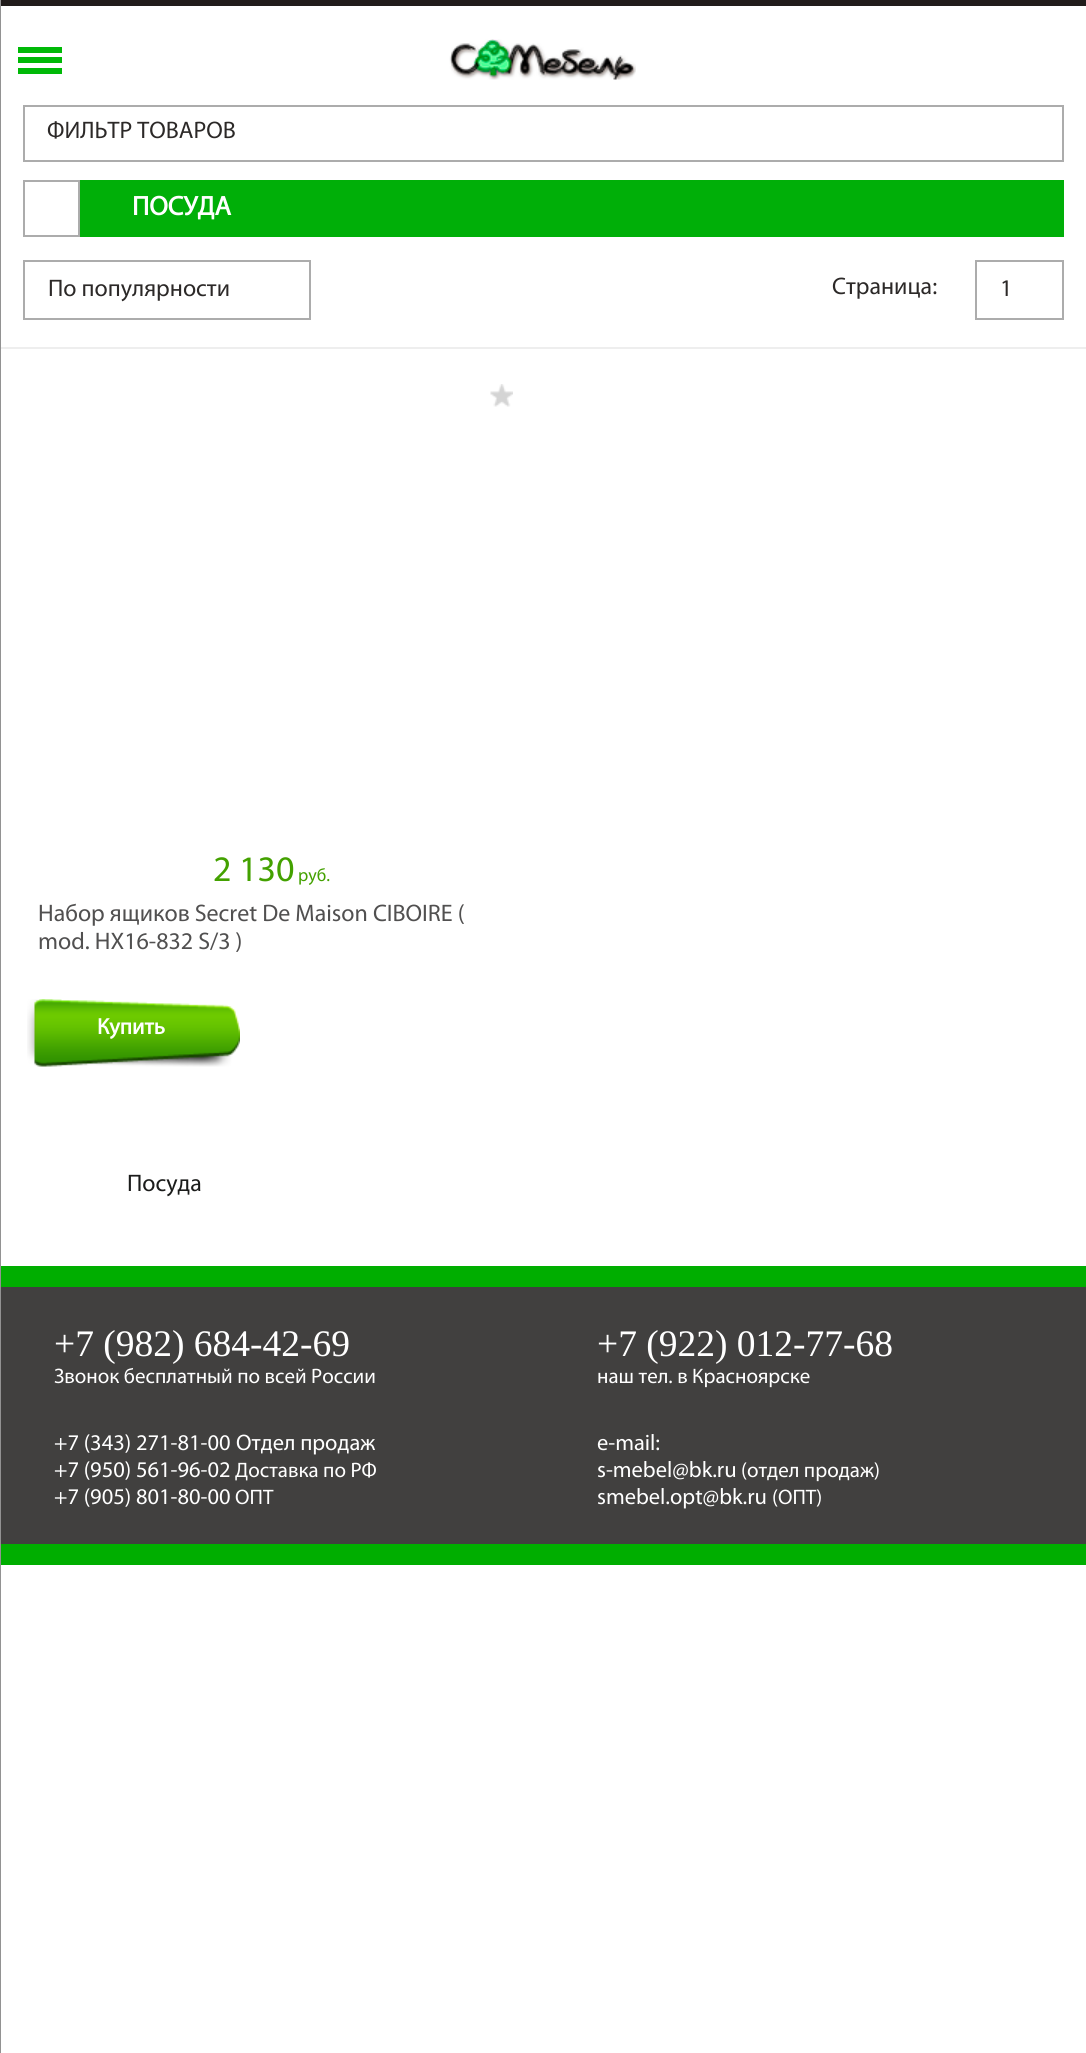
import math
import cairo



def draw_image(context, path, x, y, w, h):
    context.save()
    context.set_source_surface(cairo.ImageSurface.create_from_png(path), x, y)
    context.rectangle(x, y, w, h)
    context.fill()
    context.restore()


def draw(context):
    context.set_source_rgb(1, 1, 1)
    context.paint()
    context.set_source_rgb(33 / 255, 28 / 255, 27 / 255)
    context.rectangle(0, 0, 1086, 6)
    context.fill()
    context.set_source_rgb(0, 185 / 255, 7 / 255)
    context.rectangle(18, 47, 44, 6)
    context.fill()
    context.rectangle(18, 57, 44, 6)
    context.fill()
    context.rectangle(18, 68, 44, 6)
    context.fill()
    draw_image(context, "images/1.png", 449, 39, 187, 41)
    context.set_source_rgb(238 / 255, 238 / 255, 238 / 255)
    context.rectangle(0, 347, 1086, 2)
    context.fill()
    context.set_source_rgb(146 / 255, 146 / 255, 146 / 255)
    context.rectangle(0, 0, 1, 2053)
    context.fill()
    context.rectangle(24, 106, 1039, 55)
    context.set_source_rgb(172 / 255, 172 / 255, 172 / 255)
    context.stroke()
    context.rectangle(24, 181, 55, 55)
    context.stroke()
    context.set_source_rgb(0, 175 / 255, 8 / 255)
    context.rectangle(80, 180, 984, 57)
    context.fill()
    context.rectangle(24, 261, 286, 58)
    context.set_source_rgb(172 / 255, 172 / 255, 172 / 255)
    context.stroke()
    context.rectangle(976, 261, 87, 58)
    context.stroke()
    draw_image(context, "images/2.png", 490, 384, 23, 23)
    draw_image(context, "images/3.png", 27, 999, 213, 68)
    context.set_source_rgb(65 / 255, 64 / 255, 63 / 255)
    context.rectangle(1, 1287, 1085, 257)
    context.fill()
    context.set_source_rgb(0, 174 / 255, 0)
    context.rectangle(1, 1266, 1085, 21)
    context.fill()
    context.rectangle(1, 1544, 1085, 21)
    context.fill()
    context.select_font_face("Myriad")
    context.set_font_size(24)
    context.set_source_rgb(44 / 255, 41 / 255, 40 / 255)
    context.move_to(47, 138)
    context.show_text("ФИЛЬТР ТОВАРОВ")
    context.select_font_face("Myriad", cairo.FontSlant.NORMAL, cairo.FontWeight.BOLD)
    context.set_font_size(27)
    context.set_source_rgb(1, 1, 1)
    context.move_to(132, 215)
    context.show_text("ПОСУДА")
    context.select_font_face("Myriad")
    context.set_font_size(24)
    context.set_source_rgb(44 / 255, 41 / 255, 40 / 255)
    context.move_to(48, 296)
    context.show_text("По популярности")
    context.move_to(832, 294)
    context.show_text("Страница:")
    context.move_to(1000, 296)
    context.show_text("1")
    context.set_font_size(36)
    context.set_source_rgb(67 / 255, 161 / 255, 0)
    context.move_to(213, 881)
    context.show_text("2 130")
    context.set_font_size(18)
    context.move_to(298, 881)
    context.show_text("руб.")
    context.set_font_size(24)
    context.set_source_rgb(81 / 255, 80 / 255, 80 / 255)
    context.move_to(38, 921)
    context.show_text("Набор ящиков Secret De Maison CIBOIRE (")
    context.move_to(38, 949)
    context.show_text("mod. HX16-832 S/3 )")
    context.select_font_face("Myriad", cairo.FontSlant.NORMAL, cairo.FontWeight.BOLD)
    context.set_font_size(22.5)
    context.set_source_rgb(1, 1, 1)
    context.move_to(97, 1034)
    context.show_text("Купить")
    context.select_font_face("Myriad")
    context.set_font_size(24)
    context.set_source_rgb(27 / 255, 28 / 255, 27 / 255)
    context.move_to(127, 1191)
    context.show_text("Посуда")
    context.select_font_face("Liberation Serif")
    context.set_font_size(37.5)
    context.set_source_rgb(1, 1, 1)
    context.move_to(54, 1356)
    context.show_text("+7 (982) 684-42-69")
    context.select_font_face("Myriad")
    context.set_font_size(21)
    context.move_to(54, 1383)
    context.show_text("Звонок бесплатный по всей России")
    context.select_font_face("Liberation Serif")
    context.set_font_size(37.5)
    context.move_to(597, 1356)
    context.show_text("+7 (922) 012-77-68")
    context.select_font_face("Myriad")
    context.set_font_size(21)
    context.move_to(597, 1383)
    context.show_text("наш тел. в Красноярске")
    context.set_font_size(22.5)
    context.move_to(54, 1450)
    context.show_text("+7 (343) 271-81-00")
    context.move_to(236, 1450)
    context.show_text("Отдел продаж")
    context.move_to(54, 1477)
    context.show_text("+7 (950) 561-96-02")
    context.set_font_size(21)
    context.move_to(235, 1477)
    context.show_text("Доставка по РФ")
    context.set_font_size(22.5)
    context.move_to(54, 1504)
    context.show_text("+7 (905) 801-80-00")
    context.set_font_size(21)
    context.move_to(235, 1504)
    context.show_text("ОПТ")
    context.set_font_size(22.5)
    context.move_to(597, 1450)
    context.show_text("e-mail:")
    context.move_to(597, 1477)
    context.show_text("s-mebel@bk.ru")
    context.set_font_size(21)
    context.move_to(741, 1477)
    context.show_text("(отдел продаж)")
    context.set_font_size(22.5)
    context.move_to(597, 1504)
    context.show_text("smebel.opt@bk.ru")
    context.set_font_size(21)
    context.move_to(772, 1504)
    context.show_text("(ОПТ)")


surface = cairo.ImageSurface(cairo.Format.RGB24, 1086, 2053)
context = cairo.Context(surface)
options = cairo.FontOptions()
options.set_hint_metrics(cairo.HintMetrics.OFF)
options.set_hint_style(cairo.HintStyle.NONE)
context.set_font_options(options)
context.set_miter_limit(4)
draw(context)
surface.write_to_png("out.png")
